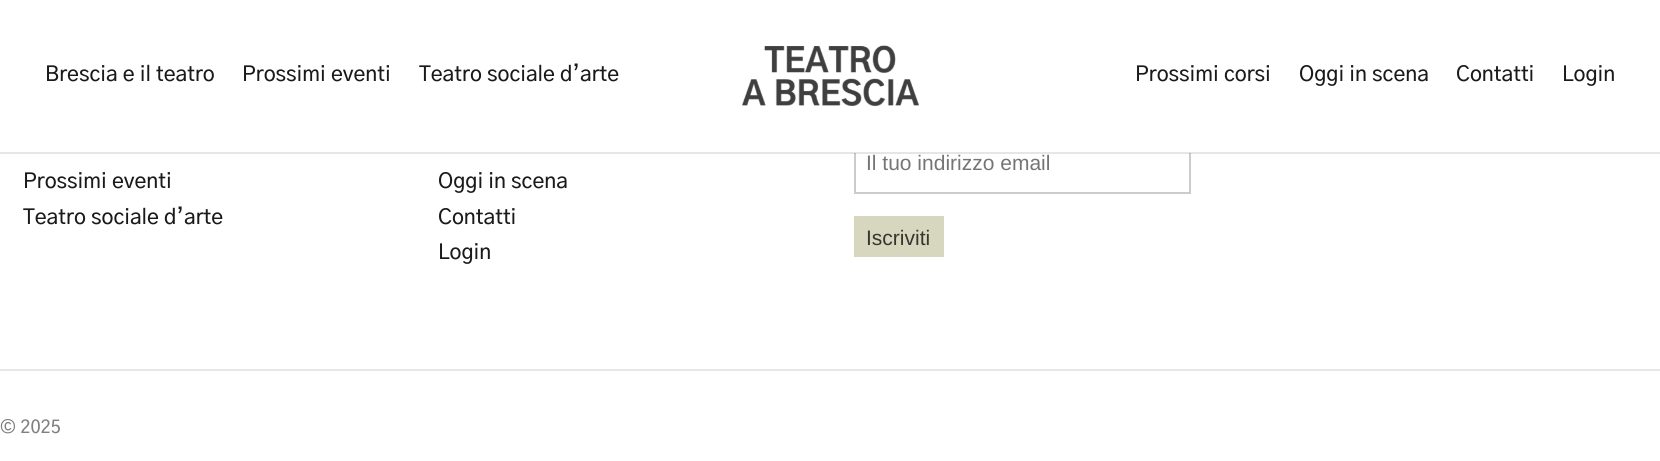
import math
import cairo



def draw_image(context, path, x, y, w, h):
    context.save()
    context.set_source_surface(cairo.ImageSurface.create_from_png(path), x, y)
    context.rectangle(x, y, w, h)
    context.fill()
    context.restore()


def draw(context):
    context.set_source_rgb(1, 1, 1)
    context.paint()
    context.rectangle(855, 133, 335, 60)
    context.set_source_rgb(204 / 255, 204 / 255, 204 / 255)
    context.stroke()
    context.set_source_rgb(1, 1, 1)
    context.rectangle(854, 132, 337, 21)
    context.fill()
    context.set_source_rgba(0, 0, 0, 0.1)
    context.rectangle(0, 152, 1660, 2)
    context.fill()
    draw_image(context, "images/1.png", 742, 45, 177, 62)
    context.set_source_rgb(215 / 255, 214 / 255, 190 / 255)
    context.rectangle(854, 216, 90, 41)
    context.fill()
    context.set_source_rgb(230 / 255, 230 / 255, 230 / 255)
    context.rectangle(0, 369, 1660, 2)
    context.fill()
    context.select_font_face("Gothic A1 Medium")
    context.set_font_size(21)
    context.set_source_rgb(26 / 255, 26 / 255, 26 / 255)
    context.move_to(45, 81)
    context.show_text("Brescia e il teatro")
    context.move_to(242, 81)
    context.show_text("Prossimi eventi")
    context.move_to(419, 81)
    context.show_text("Teatro sociale d’arte")
    context.move_to(1135, 81)
    context.show_text("Prossimi corsi")
    context.move_to(1299, 81)
    context.show_text("Oggi in scena")
    context.move_to(1456, 81)
    context.show_text("Contatti")
    context.move_to(1562, 81)
    context.show_text("Login")
    context.move_to(23, 188)
    context.show_text("Prossimi eventi")
    context.move_to(23, 224)
    context.show_text("Teatro sociale d’arte")
    context.move_to(438, 188)
    context.show_text("Oggi in scena")
    context.move_to(438, 224)
    context.show_text("Contatti")
    context.move_to(438, 259)
    context.show_text("Login")
    context.select_font_face("Liberation Sans")
    context.set_source_rgb(117 / 255, 117 / 255, 117 / 255)
    context.move_to(866, 170)
    context.show_text("Il tuo indirizzo email")
    context.set_source_rgb(54 / 255, 54 / 255, 48 / 255)
    context.move_to(866, 245)
    context.show_text("Iscriviti")
    context.select_font_face("Gothic A1 Medium")
    context.set_font_size(18)
    context.set_source_rgb(128 / 255, 128 / 255, 128 / 255)
    context.move_to(0, 433)
    context.show_text("© 2025")


surface = cairo.ImageSurface(cairo.Format.RGB24, 1660, 461)
context = cairo.Context(surface)
options = cairo.FontOptions()
options.set_hint_metrics(cairo.HintMetrics.OFF)
options.set_hint_style(cairo.HintStyle.NONE)
context.set_font_options(options)
context.set_miter_limit(4)
draw(context)
surface.write_to_png("out.png")
